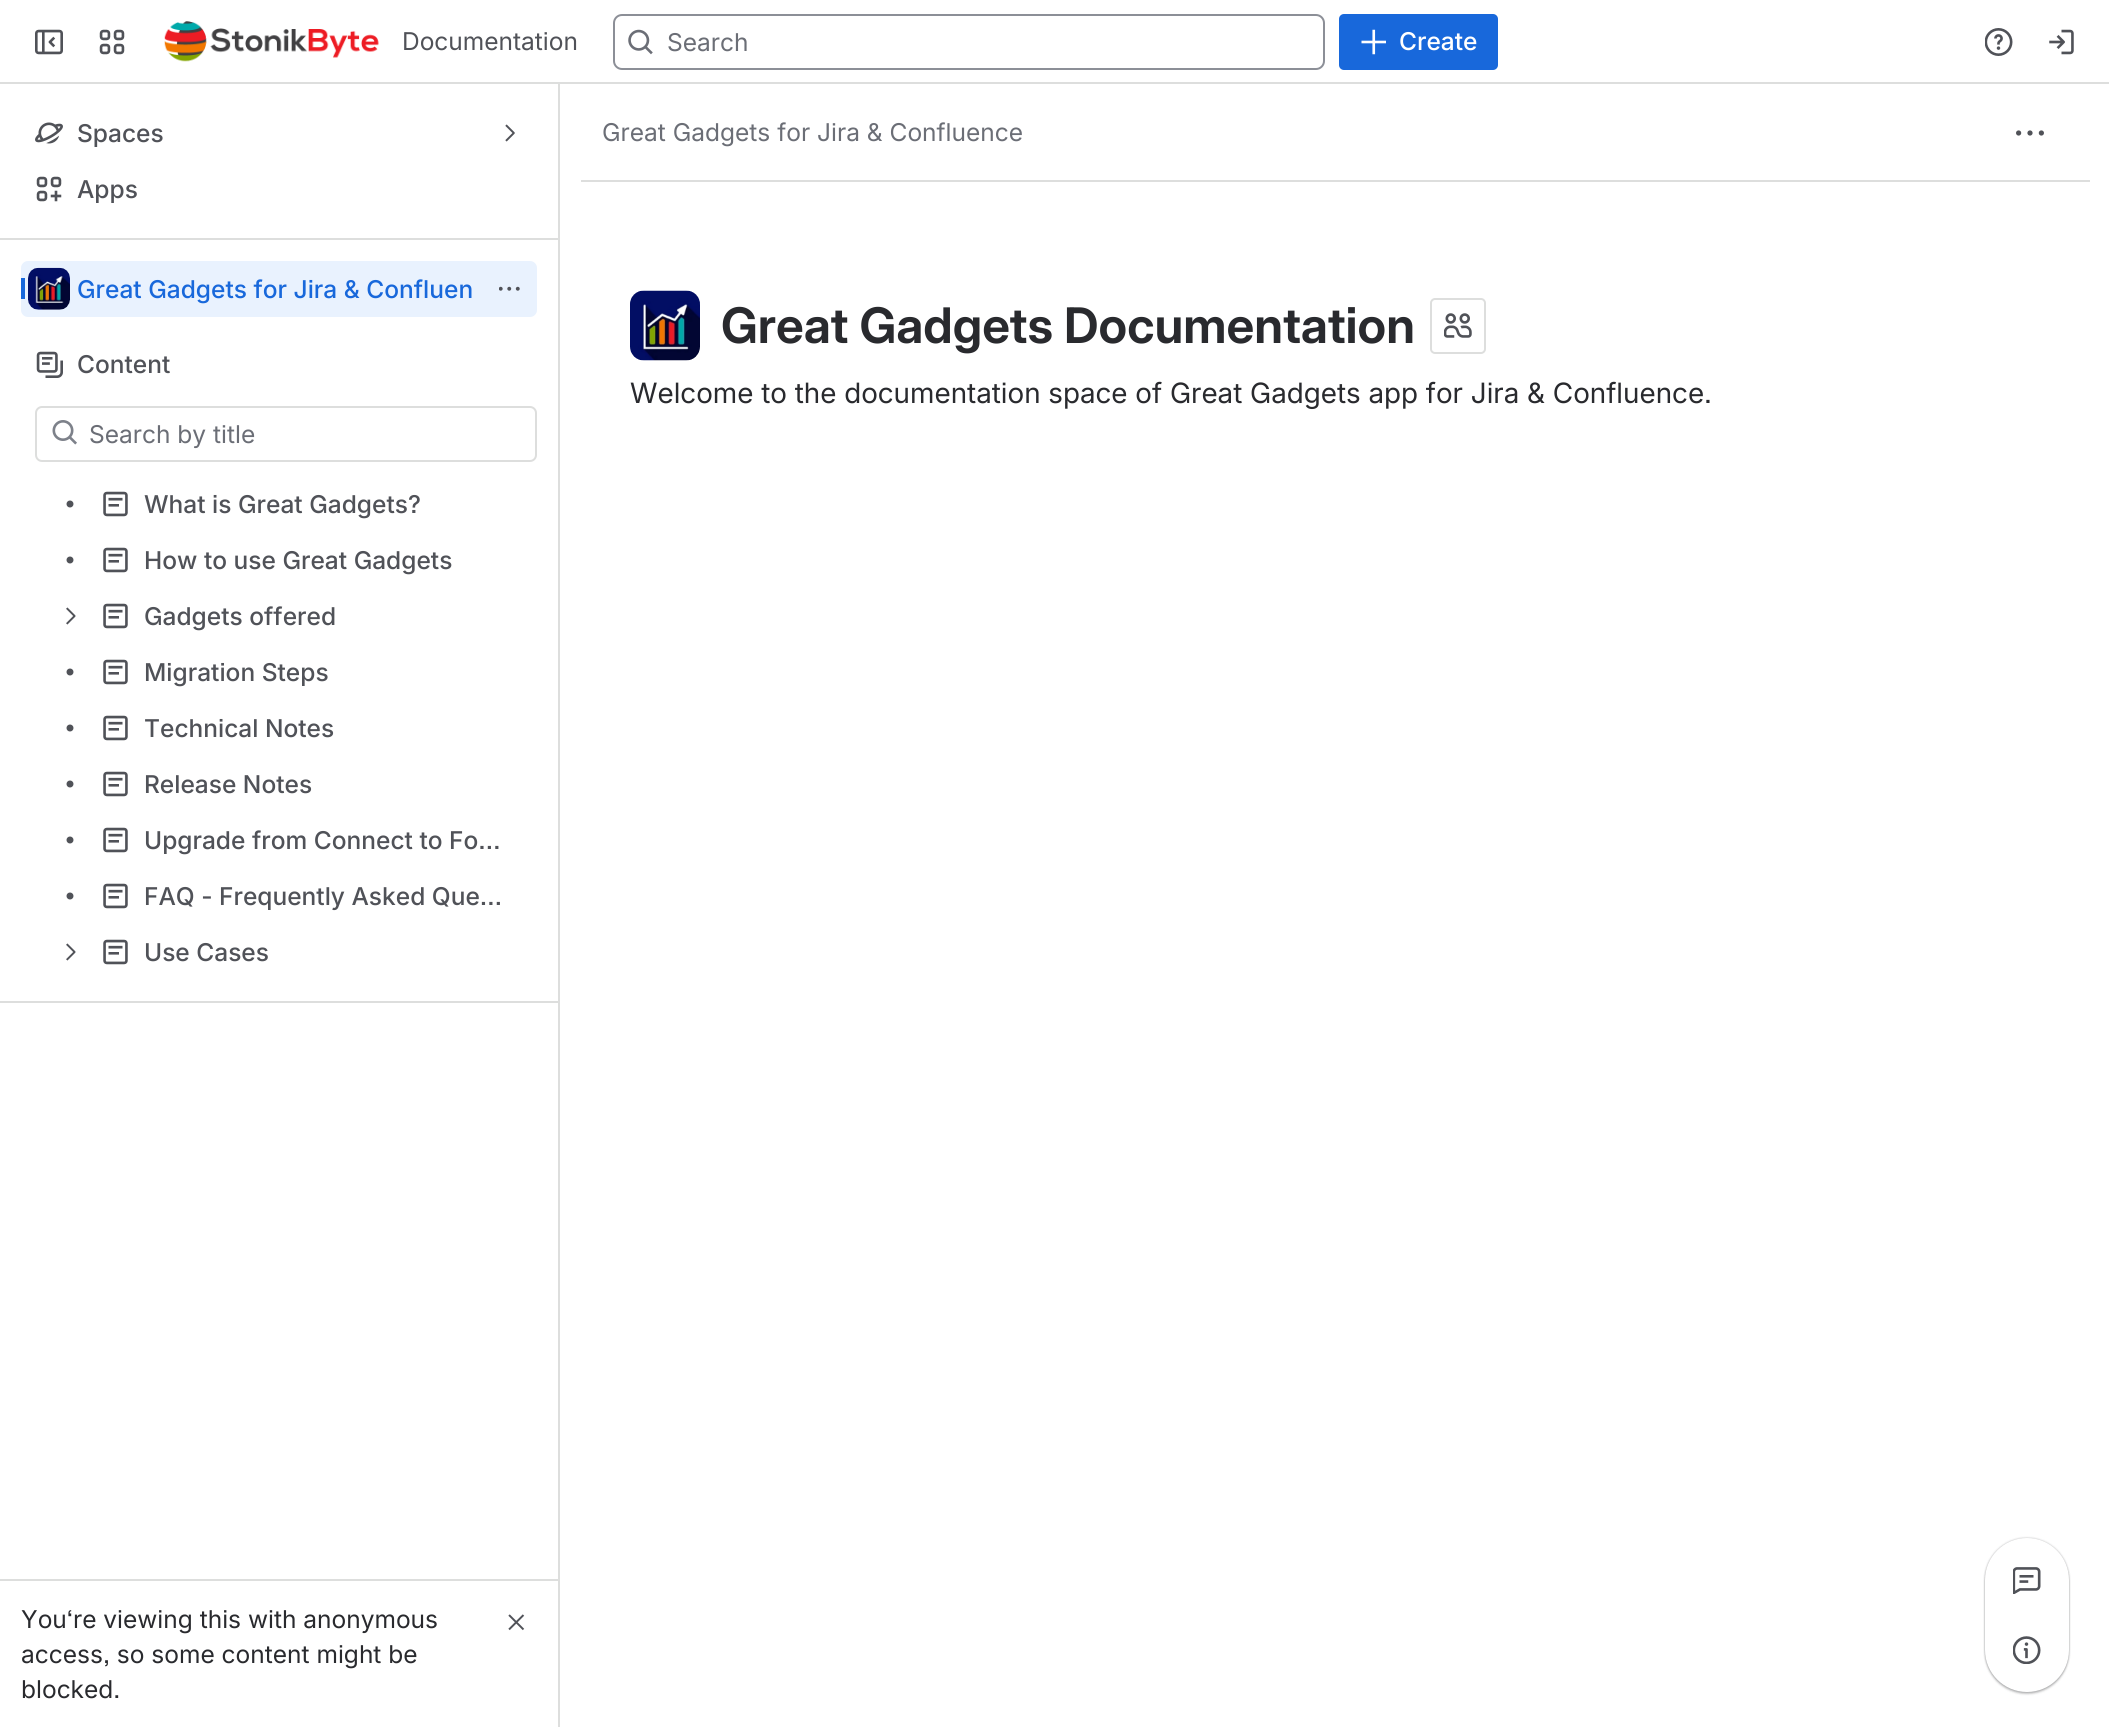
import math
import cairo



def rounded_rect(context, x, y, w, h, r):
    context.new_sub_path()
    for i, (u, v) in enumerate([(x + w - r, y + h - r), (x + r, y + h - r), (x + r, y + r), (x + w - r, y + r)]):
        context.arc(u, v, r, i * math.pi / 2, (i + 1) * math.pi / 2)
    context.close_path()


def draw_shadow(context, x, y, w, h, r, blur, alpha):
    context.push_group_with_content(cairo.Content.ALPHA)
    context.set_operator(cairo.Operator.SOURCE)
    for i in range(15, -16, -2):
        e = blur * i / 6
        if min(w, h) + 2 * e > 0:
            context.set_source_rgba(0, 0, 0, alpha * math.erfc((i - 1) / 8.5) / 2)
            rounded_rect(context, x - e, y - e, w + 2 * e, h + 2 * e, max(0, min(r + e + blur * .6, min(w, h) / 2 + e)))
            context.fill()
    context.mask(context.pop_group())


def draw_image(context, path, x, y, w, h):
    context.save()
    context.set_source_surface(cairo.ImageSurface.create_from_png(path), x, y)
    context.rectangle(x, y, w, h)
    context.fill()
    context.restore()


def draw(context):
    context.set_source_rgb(1, 1, 1)
    context.paint()
    context.set_source_rgb(221 / 255, 222 / 255, 221 / 255)
    context.rectangle(0, 82, 2109, 2)
    context.fill()
    draw_image(context, "images/1.png", 35, 29, 28, 26)
    draw_image(context, "images/2.png", 99, 29, 26, 26)
    draw_image(context, "images/3.png", 164, 21, 215, 41)
    rounded_rect(context, 614, 15, 710, 54, 8)
    context.set_source_rgb(140 / 255, 143 / 255, 151 / 255)
    context.stroke()
    draw_image(context, "images/4.png", 628, 29, 25, 26)
    context.set_source_rgb(24 / 255, 104 / 255, 219 / 255)
    rounded_rect(context, 1339, 14, 159, 56, 5)
    context.fill()
    draw_image(context, "images/5.png", 1361, 29, 25, 26)
    draw_image(context, "images/6.png", 1985, 28, 28, 28)
    draw_image(context, "images/7.png", 2049, 29, 25, 26)
    context.set_source_rgb(221 / 255, 222 / 255, 221 / 255)
    context.rectangle(558, 84, 2, 1643)
    context.fill()
    draw_image(context, "images/8.png", 35, 122, 28, 22)
    draw_image(context, "images/9.png", 505, 124, 10, 18)
    draw_image(context, "images/10.png", 36, 176, 26, 26)
    context.rectangle(0, 238, 558, 2)
    context.fill()
    context.set_source_rgb(233 / 255, 242 / 255, 254 / 255)
    rounded_rect(context, 21, 261, 516, 56, 7)
    context.fill()
    draw_image(context, "images/11.png", 28, 267, 42, 43)
    context.set_source_rgb(24 / 255, 104 / 255, 219 / 255)
    context.rectangle(21, 278, 4, 21)
    context.fill()
    draw_image(context, "images/12.png", 499, 286, 21, 5)
    draw_image(context, "images/13.png", 36, 351, 27, 27)
    rounded_rect(context, 36, 407, 500, 54, 6)
    context.set_source_rgb(221 / 255, 222 / 255, 221 / 255)
    context.stroke()
    draw_image(context, "images/14.png", 52, 420, 25, 25)
    draw_image(context, "images/15.png", 66, 500, 8, 8)
    draw_image(context, "images/16.png", 103, 491, 25, 26)
    draw_image(context, "images/15.png", 66, 556, 8, 8)
    draw_image(context, "images/16.png", 103, 547, 25, 26)
    draw_image(context, "images/17.png", 66, 607, 10, 18)
    draw_image(context, "images/16.png", 103, 603, 25, 26)
    draw_image(context, "images/15.png", 66, 668, 8, 8)
    draw_image(context, "images/16.png", 103, 659, 25, 26)
    draw_image(context, "images/15.png", 66, 724, 8, 8)
    draw_image(context, "images/16.png", 103, 715, 25, 26)
    draw_image(context, "images/15.png", 66, 780, 8, 8)
    draw_image(context, "images/16.png", 103, 771, 25, 26)
    draw_image(context, "images/15.png", 66, 836, 8, 8)
    draw_image(context, "images/16.png", 103, 827, 25, 26)
    draw_image(context, "images/15.png", 66, 892, 8, 8)
    draw_image(context, "images/16.png", 103, 883, 25, 26)
    draw_image(context, "images/17.png", 66, 943, 10, 18)
    draw_image(context, "images/16.png", 103, 939, 25, 26)
    context.rectangle(0, 1001, 558, 2)
    context.fill()
    context.rectangle(0, 1579, 558, 2)
    context.fill()
    draw_image(context, "images/18.png", 508, 1614, 17, 17)
    context.rectangle(581, 180, 1509, 2)
    context.fill()
    draw_image(context, "images/19.png", 2016, 130, 28, 6)
    draw_image(context, "images/20.png", 630, 290, 70, 71)
    rounded_rect(context, 1431, 299, 54, 54, 4)
    context.stroke()
    draw_image(context, "images/21.png", 1444, 313, 28, 25)
    context.set_source_rgb(30 / 255, 31 / 255, 33 / 255)
    draw_shadow(context, 1985, 1538, 84, 154, 42, 1, 0.31)
    draw_shadow(context, 1985, 1540, 84, 154, 42, 1, 0.25)
    context.set_source_rgb(1, 1, 1)
    rounded_rect(context, 1985, 1538, 84, 154, 42)
    context.fill()
    draw_image(context, "images/22.png", 2013, 1567, 28, 27)
    draw_image(context, "images/23.png", 2013, 1636, 28, 28)
    context.select_font_face("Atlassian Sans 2")
    context.set_font_size(24.5)
    context.set_source_rgb(80 / 255, 82 / 255, 88 / 255)
    context.move_to(402, 50)
    context.show_text("Documentation")
    context.set_source_rgb(107 / 255, 110 / 255, 118 / 255)
    context.move_to(667, 51)
    context.show_text("Search")
    context.select_font_face("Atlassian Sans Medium")
    context.set_source_rgb(1, 1, 1)
    context.move_to(1399, 50)
    context.show_text("Create")
    context.set_source_rgb(80 / 255, 82 / 255, 88 / 255)
    context.move_to(77, 142)
    context.show_text("Spaces")
    context.move_to(77, 198)
    context.show_text("Apps")
    context.set_source_rgb(24 / 255, 104 / 255, 219 / 255)
    context.move_to(77, 298)
    context.show_text("Great Gadgets for Jira & Confluen")
    context.set_source_rgb(80 / 255, 82 / 255, 88 / 255)
    context.move_to(77, 373)
    context.show_text("Content")
    context.select_font_face("Atlassian Sans 2")
    context.set_source_rgb(107 / 255, 110 / 255, 118 / 255)
    context.move_to(89, 443)
    context.show_text("Search by title")
    context.select_font_face("Atlassian Sans Medium")
    context.set_source_rgb(80 / 255, 82 / 255, 88 / 255)
    context.move_to(144, 513)
    context.show_text("What is Great Gadgets?")
    context.move_to(144, 569)
    context.show_text("How to use Great Gadgets")
    context.move_to(144, 625)
    context.show_text("Gadgets offered")
    context.move_to(144, 681)
    context.show_text("Migration Steps")
    context.move_to(144, 737)
    context.show_text("Technical Notes")
    context.move_to(144, 793)
    context.show_text("Release Notes")
    context.move_to(144, 849)
    context.show_text("Upgrade from Connect to Fo…")
    context.move_to(144, 905)
    context.show_text("FAQ - Frequently Asked Que…")
    context.move_to(144, 961)
    context.show_text("Use Cases")
    context.select_font_face("Atlassian Sans 2")
    context.set_source_rgb(41 / 255, 42 / 255, 46 / 255)
    context.move_to(21, 1628)
    context.show_text("You‘re viewing this with anonymous")
    context.move_to(21, 1663)
    context.show_text("access, so some content might be")
    context.move_to(21, 1698)
    context.show_text("blocked.")
    context.set_source_rgb(107 / 255, 110 / 255, 118 / 255)
    context.move_to(602, 141)
    context.show_text("Great Gadgets for Jira & Confluence")
    context.select_font_face("Atlassian Sans", cairo.FontSlant.NORMAL, cairo.FontWeight.BOLD)
    context.set_font_size(49)
    context.set_source_rgb(41 / 255, 42 / 255, 46 / 255)
    context.move_to(721, 343)
    context.show_text("Great Gadgets Documentation")
    context.select_font_face("Atlassian Sans")
    context.set_font_size(28)
    context.move_to(630, 403)
    context.show_text("Welcome to the documentation space of Great Gadgets app for Jira & Confluence.")


surface = cairo.ImageSurface(cairo.Format.RGB24, 2109, 1727)
context = cairo.Context(surface)
options = cairo.FontOptions()
options.set_hint_metrics(cairo.HintMetrics.OFF)
options.set_hint_style(cairo.HintStyle.NONE)
context.set_font_options(options)
context.set_miter_limit(4)
draw(context)
surface.write_to_png("out.png")
